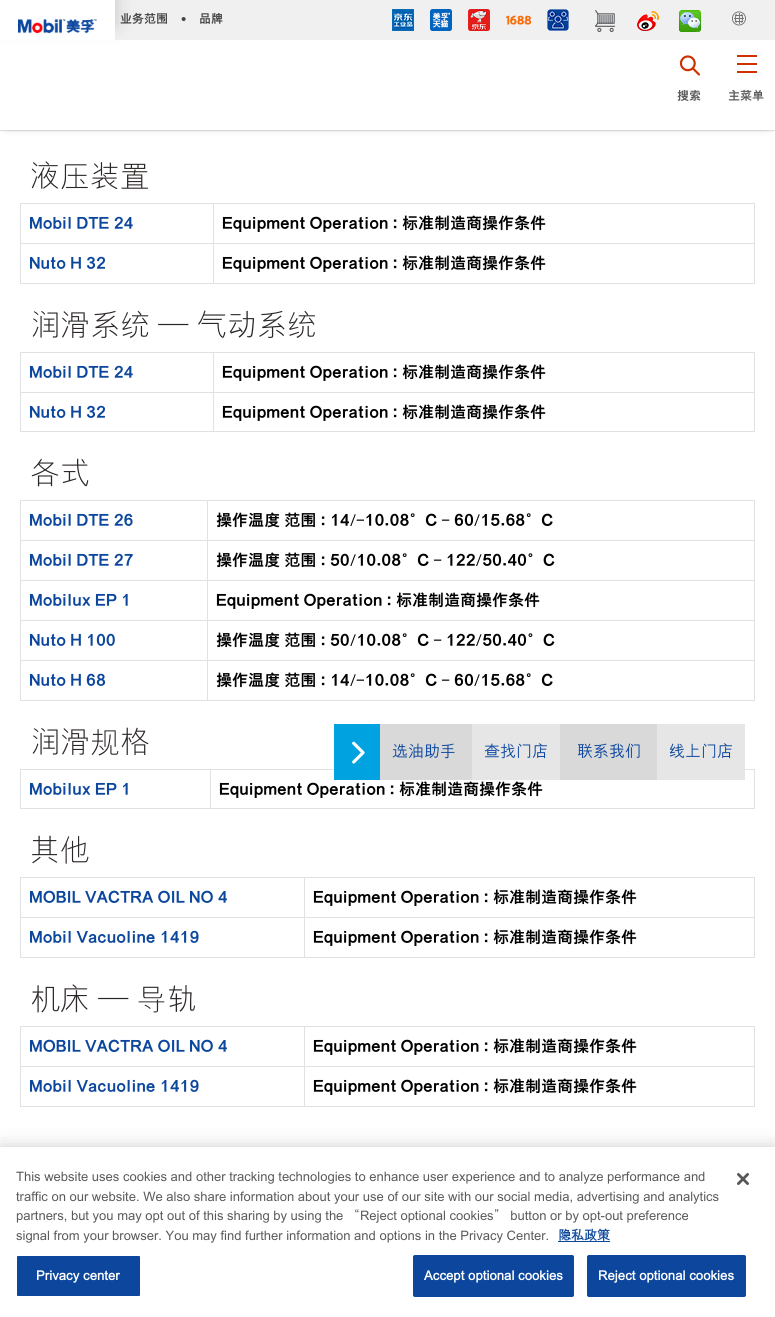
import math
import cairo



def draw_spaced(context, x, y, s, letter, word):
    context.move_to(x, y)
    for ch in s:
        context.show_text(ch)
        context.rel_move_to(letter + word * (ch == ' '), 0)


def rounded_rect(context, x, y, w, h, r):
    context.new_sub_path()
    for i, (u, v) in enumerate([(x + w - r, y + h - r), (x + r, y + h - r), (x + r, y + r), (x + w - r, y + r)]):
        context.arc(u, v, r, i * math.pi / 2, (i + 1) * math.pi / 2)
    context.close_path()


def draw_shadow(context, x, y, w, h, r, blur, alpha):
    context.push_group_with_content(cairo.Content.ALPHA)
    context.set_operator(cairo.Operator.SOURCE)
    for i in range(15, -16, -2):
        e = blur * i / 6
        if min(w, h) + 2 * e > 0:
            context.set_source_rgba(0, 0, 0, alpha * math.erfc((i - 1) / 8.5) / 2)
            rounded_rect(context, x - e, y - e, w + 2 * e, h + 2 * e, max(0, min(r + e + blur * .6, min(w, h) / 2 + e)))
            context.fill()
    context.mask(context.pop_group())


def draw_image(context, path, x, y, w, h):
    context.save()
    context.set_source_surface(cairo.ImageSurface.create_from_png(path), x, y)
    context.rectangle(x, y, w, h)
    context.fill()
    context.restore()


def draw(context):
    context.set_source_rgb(1, 1, 1)
    context.paint()
    context.set_source_rgb(196 / 255, 196 / 255, 196 / 255)
    draw_shadow(context, 9, 13, 757, 112, 0, 6, 1)
    context.set_source_rgb(17 / 255, 17 / 255, 17 / 255)
    draw_shadow(context, 0, 1, 775, 130, 0, 0.5, 0.15)
    context.set_source_rgb(240 / 255, 240 / 255, 240 / 255)
    context.rectangle(115, 0, 660, 40)
    context.fill()
    context.set_source_rgb(1, 1, 1)
    context.rectangle(0, 40, 775, 90)
    context.fill()
    context.set_source_rgb(204 / 255, 204 / 255, 204 / 255)
    draw_shadow(context, -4, -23, 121, 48, 0, 9, 1)
    context.set_source_rgb(1, 1, 1)
    context.rectangle(0, 0, 115, 40)
    context.fill()
    draw_image(context, "images/1.png", 18, 19, 79, 15)
    draw_image(context, "images/2.png", 392, 9, 22, 22)
    draw_image(context, "images/3.png", 430, 9, 22, 22)
    draw_image(context, "images/4.png", 468, 9, 22, 22)
    draw_image(context, "images/5.png", 506, 15, 25, 12)
    draw_image(context, "images/6.png", 547, 9, 22, 22)
    draw_image(context, "images/7.png", 595, 10, 20, 22)
    draw_image(context, "images/8.png", 637, 11, 22, 20)
    draw_image(context, "images/9.png", 679, 10, 22, 22)
    draw_image(context, "images/10.png", 731, 11, 15, 15)
    draw_image(context, "images/11.png", 679, 55, 22, 21)
    context.set_source_rgb(207 / 255, 49 / 255, 1 / 255)
    context.rectangle(737, 63, 20, 2)
    context.fill()
    context.rectangle(737, 55, 20, 2)
    context.fill()
    context.rectangle(737, 71, 20, 2)
    context.fill()
    context.set_source_rgb(223 / 255, 225 / 255, 228 / 255)
    context.rectangle(213, 203, 542, 1)
    context.fill()
    context.rectangle(213, 243, 542, 1)
    context.fill()
    context.rectangle(754, 243, 1, 41)
    context.fill()
    context.rectangle(213, 283, 542, 1)
    context.fill()
    context.rectangle(213, 243, 1, 41)
    context.fill()
    context.rectangle(20, 243, 194, 1)
    context.fill()
    context.rectangle(213, 203, 1, 41)
    context.fill()
    context.rectangle(20, 203, 194, 1)
    context.fill()
    context.rectangle(20, 283, 194, 1)
    context.fill()
    context.rectangle(20, 243, 1, 41)
    context.fill()
    context.rectangle(20, 203, 1, 41)
    context.fill()
    context.rectangle(754, 203, 1, 41)
    context.fill()
    context.rectangle(213, 352, 542, 1)
    context.fill()
    context.rectangle(213, 392, 542, 1)
    context.fill()
    context.rectangle(754, 392, 1, 40)
    context.fill()
    context.rectangle(213, 431, 542, 1)
    context.fill()
    context.rectangle(213, 392, 1, 40)
    context.fill()
    context.rectangle(20, 392, 194, 1)
    context.fill()
    context.rectangle(213, 352, 1, 41)
    context.fill()
    context.rectangle(20, 352, 194, 1)
    context.fill()
    context.rectangle(20, 431, 194, 1)
    context.fill()
    context.rectangle(20, 392, 1, 40)
    context.fill()
    context.rectangle(20, 352, 1, 41)
    context.fill()
    context.rectangle(754, 352, 1, 41)
    context.fill()
    context.rectangle(207, 500, 548, 1)
    context.fill()
    context.rectangle(207, 540, 548, 1)
    context.fill()
    context.rectangle(207, 580, 548, 1)
    context.fill()
    context.rectangle(207, 620, 548, 1)
    context.fill()
    context.rectangle(207, 660, 548, 1)
    context.fill()
    context.rectangle(754, 660, 1, 41)
    context.fill()
    context.rectangle(207, 700, 548, 1)
    context.fill()
    context.rectangle(207, 660, 1, 41)
    context.fill()
    context.rectangle(20, 660, 188, 1)
    context.fill()
    context.rectangle(207, 620, 1, 41)
    context.fill()
    context.rectangle(20, 620, 188, 1)
    context.fill()
    context.rectangle(207, 580, 1, 41)
    context.fill()
    context.rectangle(20, 580, 188, 1)
    context.fill()
    context.rectangle(207, 540, 1, 41)
    context.fill()
    context.rectangle(20, 540, 188, 1)
    context.fill()
    context.rectangle(207, 500, 1, 41)
    context.fill()
    context.rectangle(20, 500, 188, 1)
    context.fill()
    context.rectangle(20, 700, 188, 1)
    context.fill()
    context.rectangle(20, 660, 1, 41)
    context.fill()
    context.rectangle(20, 620, 1, 41)
    context.fill()
    context.rectangle(20, 580, 1, 41)
    context.fill()
    context.rectangle(20, 540, 1, 41)
    context.fill()
    context.rectangle(20, 500, 1, 41)
    context.fill()
    context.rectangle(754, 620, 1, 41)
    context.fill()
    context.rectangle(754, 580, 1, 41)
    context.fill()
    context.rectangle(754, 540, 1, 41)
    context.fill()
    context.rectangle(754, 500, 1, 41)
    context.fill()
    context.rectangle(210, 769, 545, 1)
    context.fill()
    context.rectangle(754, 769, 1, 40)
    context.fill()
    context.rectangle(210, 808, 545, 1)
    context.fill()
    context.rectangle(210, 769, 1, 40)
    context.fill()
    context.rectangle(20, 769, 191, 1)
    context.fill()
    context.rectangle(20, 808, 191, 1)
    context.fill()
    context.rectangle(20, 769, 1, 40)
    context.fill()
    context.rectangle(304, 877, 451, 1)
    context.fill()
    context.rectangle(304, 917, 451, 1)
    context.fill()
    context.rectangle(754, 917, 1, 41)
    context.fill()
    context.rectangle(304, 957, 451, 1)
    context.fill()
    context.rectangle(304, 917, 1, 41)
    context.fill()
    context.rectangle(20, 917, 285, 1)
    context.fill()
    context.rectangle(304, 877, 1, 41)
    context.fill()
    context.rectangle(20, 877, 285, 1)
    context.fill()
    context.rectangle(20, 957, 285, 1)
    context.fill()
    context.rectangle(20, 917, 1, 41)
    context.fill()
    context.rectangle(20, 877, 1, 41)
    context.fill()
    context.rectangle(754, 877, 1, 41)
    context.fill()
    context.rectangle(304, 1026, 451, 1)
    context.fill()
    context.rectangle(304, 1066, 451, 1)
    context.fill()
    context.rectangle(754, 1066, 1, 41)
    context.fill()
    context.rectangle(304, 1106, 451, 1)
    context.fill()
    context.rectangle(304, 1066, 1, 41)
    context.fill()
    context.rectangle(20, 1066, 285, 1)
    context.fill()
    context.rectangle(304, 1026, 1, 41)
    context.fill()
    context.rectangle(20, 1026, 285, 1)
    context.fill()
    context.rectangle(20, 1106, 285, 1)
    context.fill()
    context.rectangle(20, 1066, 1, 41)
    context.fill()
    context.rectangle(20, 1026, 1, 41)
    context.fill()
    context.rectangle(754, 1026, 1, 41)
    context.fill()
    context.set_source_rgb(0, 163 / 255, 224 / 255)
    context.rectangle(334, 724, 46, 56)
    context.fill()
    draw_image(context, "images/12.png", 352, 741, 13, 23)
    context.set_source_rgb(217 / 255, 217 / 255, 217 / 255)
    context.rectangle(380, 724, 277, 56)
    context.fill()
    context.set_source_rgb(230 / 255, 230 / 255, 230 / 255)
    context.rectangle(472, 724, 88, 56)
    context.fill()
    context.rectangle(657, 724, 88, 56)
    context.fill()
    context.set_source_rgb(0, 0, 0)
    draw_shadow(context, 0, 1147, 775, 170, 0, 9, 0.2)
    context.set_source_rgb(1, 1, 1)
    context.rectangle(0, 1147, 775, 170)
    context.fill()
    context.set_source_rgb(12 / 255, 71 / 255, 157 / 255)
    context.rectangle(558, 1241, 52, 1)
    context.fill()
    rounded_rect(context, 16.5, 1255.5, 124, 41, 1.5)
    context.fill_preserve()
    context.set_source_rgb(1, 1, 1)
    context.set_line_width(1)
    context.stroke()
    context.set_source_rgb(12 / 255, 71 / 255, 157 / 255)
    rounded_rect(context, 413.5, 1255.5, 160, 41, 1.5)
    context.fill_preserve()
    context.stroke()
    rounded_rect(context, 587.5, 1255.5, 158, 41, 1.5)
    context.fill_preserve()
    context.stroke()
    draw_image(context, "images/13.png", 737, 1173, 12, 12)
    context.select_font_face("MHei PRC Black")
    context.set_font_size(12)
    context.set_source_rgb(69 / 255, 69 / 255, 69 / 255)
    context.move_to(120, 23)
    context.show_text("业务范围")
    context.select_font_face("Liberation Sans")
    context.set_font_size(15)
    context.move_to(181, 24)
    context.show_text("•")
    context.select_font_face("MHei PRC Black")
    context.set_font_size(12)
    context.move_to(199, 23)
    context.show_text("品牌")
    context.set_source_rgb(90 / 255, 90 / 255, 90 / 255)
    context.move_to(677, 100)
    context.show_text("搜索")
    context.move_to(728, 100)
    context.show_text("主菜单")
    context.select_font_face("MHei PRC Light")
    context.set_font_size(30)
    context.set_source_rgb(43 / 255, 38 / 255, 38 / 255)
    context.move_to(30, 187)
    context.show_text("液压装置")
    context.select_font_face("MHei PRC Black")
    context.set_font_size(16)
    context.set_source_rgb(12 / 255, 71 / 255, 157 / 255)
    context.move_to(29, 229)
    context.show_text("Mobil DTE 24")
    context.set_source_rgb(0, 0, 0)
    context.move_to(222, 229)
    context.show_text("Equipment Operation : 标准制造商操作条件")
    context.set_source_rgb(12 / 255, 71 / 255, 157 / 255)
    context.move_to(29, 269)
    context.show_text("Nuto H 32")
    context.set_source_rgb(0, 0, 0)
    context.move_to(222, 269)
    context.show_text("Equipment Operation : 标准制造商操作条件")
    context.select_font_face("MHei PRC Light")
    context.set_font_size(30)
    context.set_source_rgb(43 / 255, 38 / 255, 38 / 255)
    context.move_to(30, 336)
    context.show_text("润滑系统 — 气动系统")
    context.select_font_face("MHei PRC Black")
    context.set_font_size(16)
    context.set_source_rgb(12 / 255, 71 / 255, 157 / 255)
    context.move_to(29, 378)
    context.show_text("Mobil DTE 24")
    context.set_source_rgb(0, 0, 0)
    context.move_to(222, 378)
    context.show_text("Equipment Operation : 标准制造商操作条件")
    context.set_source_rgb(12 / 255, 71 / 255, 157 / 255)
    context.move_to(29, 418)
    context.show_text("Nuto H 32")
    context.set_source_rgb(0, 0, 0)
    context.move_to(222, 418)
    context.show_text("Equipment Operation : 标准制造商操作条件")
    context.select_font_face("MHei PRC Light")
    context.set_font_size(30)
    context.set_source_rgb(43 / 255, 38 / 255, 38 / 255)
    context.move_to(30, 484)
    context.show_text("各式")
    context.select_font_face("MHei PRC Black")
    context.set_font_size(16)
    context.set_source_rgb(12 / 255, 71 / 255, 157 / 255)
    context.move_to(29, 526)
    context.show_text("Mobil DTE 26")
    context.set_source_rgb(0, 0, 0)
    context.move_to(216, 526)
    context.show_text("操作温度 范围 : 14/-10.08°C - 60/15.68°C")
    context.set_source_rgb(12 / 255, 71 / 255, 157 / 255)
    context.move_to(29, 566)
    context.show_text("Mobil DTE 27")
    context.set_source_rgb(0, 0, 0)
    context.move_to(216, 566)
    context.show_text("操作温度 范围 : 50/10.08°C - 122/50.40°C")
    context.set_source_rgb(12 / 255, 71 / 255, 157 / 255)
    context.move_to(29, 606)
    context.show_text("Mobilux EP 1")
    context.set_source_rgb(0, 0, 0)
    context.move_to(216, 606)
    context.show_text("Equipment Operation : 标准制造商操作条件")
    context.set_source_rgb(12 / 255, 71 / 255, 157 / 255)
    context.move_to(29, 646)
    context.show_text("Nuto H 100")
    context.set_source_rgb(0, 0, 0)
    context.move_to(216, 646)
    context.show_text("操作温度 范围 : 50/10.08°C - 122/50.40°C")
    context.set_source_rgb(12 / 255, 71 / 255, 157 / 255)
    context.move_to(29, 686)
    context.show_text("Nuto H 68")
    context.set_source_rgb(0, 0, 0)
    context.move_to(216, 686)
    context.show_text("操作温度 范围 : 14/-10.08°C - 60/15.68°C")
    context.select_font_face("MHei PRC Light")
    context.set_font_size(30)
    context.set_source_rgb(43 / 255, 38 / 255, 38 / 255)
    context.move_to(30, 753)
    context.show_text("润滑规格")
    context.select_font_face("MHei PRC Black")
    context.set_font_size(16)
    context.set_source_rgb(12 / 255, 71 / 255, 157 / 255)
    context.move_to(29, 795)
    context.show_text("Mobilux EP 1")
    context.set_source_rgb(0, 0, 0)
    context.move_to(219, 795)
    context.show_text("Equipment Operation : 标准制造商操作条件")
    context.select_font_face("MHei PRC Light")
    context.set_font_size(30)
    context.set_source_rgb(43 / 255, 38 / 255, 38 / 255)
    context.move_to(30, 861)
    context.show_text("其他")
    context.select_font_face("MHei PRC Black")
    context.set_font_size(16)
    context.set_source_rgb(12 / 255, 71 / 255, 157 / 255)
    context.move_to(29, 903)
    context.show_text("MOBIL VACTRA OIL NO 4")
    context.set_source_rgb(0, 0, 0)
    context.move_to(313, 903)
    context.show_text("Equipment Operation : 标准制造商操作条件")
    context.set_source_rgb(12 / 255, 71 / 255, 157 / 255)
    context.move_to(29, 943)
    context.show_text("Mobil Vacuoline 1419")
    context.set_source_rgb(0, 0, 0)
    context.move_to(313, 943)
    context.show_text("Equipment Operation : 标准制造商操作条件")
    context.select_font_face("MHei PRC Light")
    context.set_font_size(30)
    context.set_source_rgb(43 / 255, 38 / 255, 38 / 255)
    context.move_to(30, 1010)
    context.show_text("机床 — 导轨")
    context.select_font_face("MHei PRC Black")
    context.set_font_size(16)
    context.set_source_rgb(12 / 255, 71 / 255, 157 / 255)
    context.move_to(29, 1052)
    context.show_text("MOBIL VACTRA OIL NO 4")
    context.set_source_rgb(0, 0, 0)
    context.move_to(313, 1052)
    context.show_text("Equipment Operation : 标准制造商操作条件")
    context.set_source_rgb(12 / 255, 71 / 255, 157 / 255)
    context.move_to(29, 1092)
    context.show_text("Mobil Vacuoline 1419")
    context.set_source_rgb(0, 0, 0)
    context.move_to(313, 1092)
    context.show_text("Equipment Operation : 标准制造商操作条件")
    context.select_font_face("MHei PRC Medium")
    context.set_source_rgb(12 / 255, 71 / 255, 157 / 255)
    context.move_to(392, 757)
    context.show_text("选油助手")
    context.move_to(484, 757)
    context.show_text("查找门店")
    context.move_to(577, 757)
    context.show_text("联系我们")
    context.move_to(669, 757)
    context.show_text("线上门店")
    context.set_font_size(13)
    context.set_source_rgb(90 / 255, 90 / 255, 90 / 255)
    context.move_to(16, 1181)
    context.show_text("This website uses cookies and other tracking technologies to enhance user experience and to analyze performance and")
    context.move_to(16, 1201)
    context.show_text("traffic on our website. We also share information about your use of our site with our social media, advertising and analytics")
    context.move_to(16, 1220)
    context.show_text("partners, but you may opt out of this sharing by using the “Reject optional cookies” button or by opt-out preference")
    context.move_to(16, 1240)
    context.show_text("signal from your browser. You may find further information and options in the Privacy Center.")
    context.select_font_face("MHei PRC", cairo.FontSlant.NORMAL, cairo.FontWeight.BOLD)
    context.set_source_rgb(12 / 255, 71 / 255, 157 / 255)
    context.move_to(558, 1240)
    context.show_text("隐私政策")
    context.set_source_rgb(1, 1, 1)
    draw_spaced(context, 36, 1280, "Privacy center", 0.1, 0)
    draw_spaced(context, 424, 1280, "Accept optional cookies", 0.1, 0)
    draw_spaced(context, 598, 1280, "Reject optional cookies", 0.1, 0)


surface = cairo.ImageSurface(cairo.Format.RGB24, 775, 1317)
context = cairo.Context(surface)
options = cairo.FontOptions()
options.set_hint_metrics(cairo.HintMetrics.OFF)
options.set_hint_style(cairo.HintStyle.NONE)
context.set_font_options(options)
context.set_miter_limit(4)
draw(context)
surface.write_to_png("out.png")
